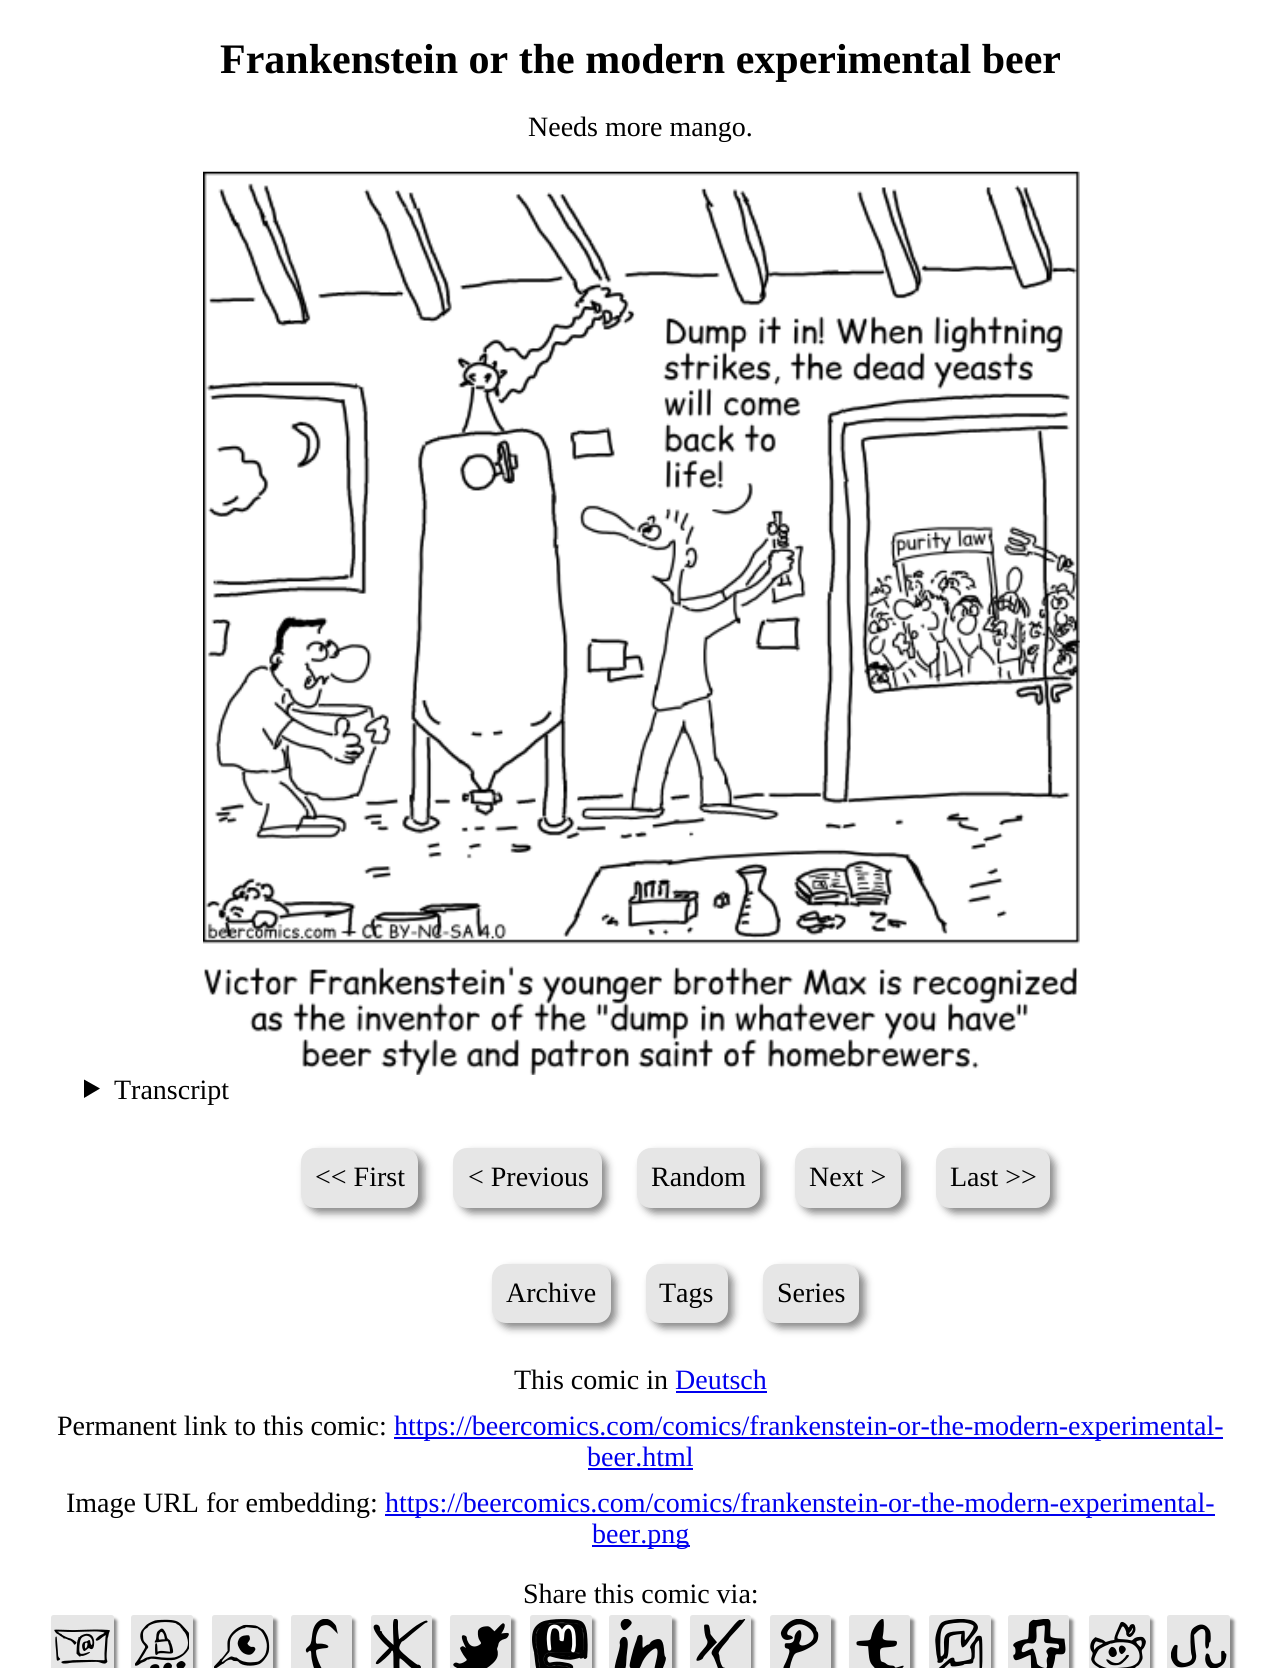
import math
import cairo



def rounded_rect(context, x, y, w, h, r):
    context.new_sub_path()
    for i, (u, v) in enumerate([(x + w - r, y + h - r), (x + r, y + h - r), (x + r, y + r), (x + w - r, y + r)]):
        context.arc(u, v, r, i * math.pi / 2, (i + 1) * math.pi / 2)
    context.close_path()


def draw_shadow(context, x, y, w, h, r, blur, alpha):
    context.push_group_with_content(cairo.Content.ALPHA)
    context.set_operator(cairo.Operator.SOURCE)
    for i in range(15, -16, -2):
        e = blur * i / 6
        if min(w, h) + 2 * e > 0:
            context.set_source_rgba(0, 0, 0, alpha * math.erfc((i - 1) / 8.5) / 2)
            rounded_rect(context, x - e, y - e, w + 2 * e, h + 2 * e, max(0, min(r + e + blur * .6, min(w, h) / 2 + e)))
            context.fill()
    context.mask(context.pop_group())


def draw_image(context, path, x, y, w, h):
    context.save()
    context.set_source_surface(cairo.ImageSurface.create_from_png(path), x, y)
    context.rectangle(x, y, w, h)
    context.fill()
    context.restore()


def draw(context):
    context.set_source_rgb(1, 1, 1)
    context.paint()
    draw_image(context, "images/1.png", 203, 171, 877, 904)
    context.set_source_rgb(0, 0, 0)
    context.new_path()
    context.move_to(84, 1079.5)
    context.line_to(100, 1088.5)
    context.line_to(84, 1098)
    context.close_path()
    context.fill()
    context.set_source_rgb(136 / 255, 136 / 255, 136 / 255)
    draw_shadow(context, 306, 1153, 118, 60, 14, 4, 1)
    context.set_source_rgb(230 / 255, 230 / 255, 230 / 255)
    rounded_rect(context, 301, 1148, 117, 60, 14)
    context.fill()
    context.set_source_rgb(136 / 255, 136 / 255, 136 / 255)
    draw_shadow(context, 459, 1153, 148, 60, 14, 4, 1)
    context.set_source_rgb(230 / 255, 230 / 255, 230 / 255)
    rounded_rect(context, 453, 1148, 149, 60, 14)
    context.fill()
    context.set_source_rgb(136 / 255, 136 / 255, 136 / 255)
    draw_shadow(context, 642, 1153, 123, 60, 14, 4, 1)
    context.set_source_rgb(230 / 255, 230 / 255, 230 / 255)
    rounded_rect(context, 637, 1148, 123, 60, 14)
    context.fill()
    context.set_source_rgb(136 / 255, 136 / 255, 136 / 255)
    draw_shadow(context, 800, 1153, 107, 60, 14, 4, 1)
    context.set_source_rgb(230 / 255, 230 / 255, 230 / 255)
    rounded_rect(context, 795, 1148, 106, 60, 14)
    context.fill()
    context.set_source_rgb(136 / 255, 136 / 255, 136 / 255)
    draw_shadow(context, 942, 1153, 113, 60, 14, 4, 1)
    context.set_source_rgb(230 / 255, 230 / 255, 230 / 255)
    rounded_rect(context, 936, 1148, 114, 60, 14)
    context.fill()
    context.set_source_rgb(136 / 255, 136 / 255, 136 / 255)
    draw_shadow(context, 497, 1269, 119, 59, 14, 4, 1)
    context.set_source_rgb(230 / 255, 230 / 255, 230 / 255)
    rounded_rect(context, 492, 1264, 119, 59, 14)
    context.fill()
    context.set_source_rgb(136 / 255, 136 / 255, 136 / 255)
    draw_shadow(context, 651, 1269, 82, 59, 14, 4, 1)
    context.set_source_rgb(230 / 255, 230 / 255, 230 / 255)
    rounded_rect(context, 646, 1264, 82, 59, 14)
    context.fill()
    context.set_source_rgb(136 / 255, 136 / 255, 136 / 255)
    draw_shadow(context, 768, 1269, 97, 59, 14, 4, 1)
    context.set_source_rgb(230 / 255, 230 / 255, 230 / 255)
    rounded_rect(context, 763, 1264, 96, 59, 14)
    context.fill()
    context.set_source_rgb(0, 0, 238 / 255)
    context.rectangle(676, 1391, 91, 2)
    context.fill()
    context.rectangle(394, 1437, 829, 2)
    context.fill()
    context.rectangle(588, 1468, 105, 2)
    context.fill()
    context.rectangle(385, 1514, 830, 2)
    context.fill()
    context.rectangle(592, 1545, 98, 2)
    context.fill()
    context.set_source_rgb(136 / 255, 136 / 255, 136 / 255)
    draw_shadow(context, 54, 1619, 63, 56, 2.5, 1.5, 1)
    draw_shadow(context, 135, 1619, 61, 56, 2.5, 1.5, 1)
    draw_shadow(context, 215, 1619, 62, 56, 2.5, 1.5, 1)
    draw_shadow(context, 294, 1619, 61, 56, 2.5, 1.5, 1)
    draw_shadow(context, 375, 1619, 61, 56, 2.5, 1.5, 1)
    draw_shadow(context, 453, 1619, 62, 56, 2.5, 1.5, 1)
    draw_shadow(context, 534, 1619, 61, 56, 2.5, 1.5, 1)
    draw_shadow(context, 613, 1619, 63, 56, 2.5, 1.5, 1)
    draw_shadow(context, 693, 1619, 61, 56, 2.5, 1.5, 1)
    draw_shadow(context, 774, 1619, 61, 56, 2.5, 1.5, 1)
    draw_shadow(context, 852, 1619, 62, 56, 2.5, 1.5, 1)
    draw_shadow(context, 933, 1619, 61, 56, 2.5, 1.5, 1)
    draw_shadow(context, 1012, 1619, 61, 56, 2.5, 1.5, 1)
    draw_shadow(context, 1092, 1619, 61, 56, 2.5, 1.5, 1)
    draw_shadow(context, 1171, 1619, 63, 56, 2.5, 1.5, 1)
    context.set_source_rgb(230 / 255, 230 / 255, 230 / 255)
    rounded_rect(context, 51, 1615, 63, 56, 2.5)
    context.fill()
    rounded_rect(context, 131, 1615, 62, 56, 2.5)
    context.fill()
    rounded_rect(context, 212, 1615, 61, 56, 2.5)
    context.fill()
    rounded_rect(context, 291, 1615, 61, 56, 2.5)
    context.fill()
    rounded_rect(context, 371, 1615, 61, 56, 2.5)
    context.fill()
    rounded_rect(context, 450, 1615, 61, 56, 2.5)
    context.fill()
    rounded_rect(context, 530, 1615, 62, 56, 2.5)
    context.fill()
    rounded_rect(context, 609, 1615, 63, 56, 2.5)
    context.fill()
    rounded_rect(context, 690, 1615, 61, 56, 2.5)
    context.fill()
    rounded_rect(context, 770, 1615, 61, 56, 2.5)
    context.fill()
    rounded_rect(context, 849, 1615, 61, 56, 2.5)
    context.fill()
    rounded_rect(context, 929, 1615, 62, 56, 2.5)
    context.fill()
    rounded_rect(context, 1008, 1615, 61, 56, 2.5)
    context.fill()
    rounded_rect(context, 1089, 1615, 61, 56, 2.5)
    context.fill()
    rounded_rect(context, 1167, 1615, 63, 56, 2.5)
    context.fill()
    draw_image(context, "images/2.png", 54, 1629, 56, 35)
    draw_image(context, "images/3.png", 135, 1619, 54, 49)
    draw_image(context, "images/4.png", 214, 1624, 56, 44)
    draw_image(context, "images/5.png", 305, 1619, 33, 49)
    draw_image(context, "images/6.png", 373, 1619, 55, 49)
    draw_image(context, "images/7.png", 453, 1623, 56, 45)
    draw_image(context, "images/8.png", 532, 1619, 56, 49)
    draw_image(context, "images/9.png", 614, 1619, 52, 49)
    draw_image(context, "images/10.png", 696, 1619, 50, 49)
    draw_image(context, "images/11.png", 780, 1619, 39, 49)
    draw_image(context, "images/12.png", 856, 1619, 48, 49)
    draw_image(context, "images/13.png", 935, 1619, 48, 49)
    draw_image(context, "images/14.png", 1013, 1619, 53, 49)
    draw_image(context, "images/15.png", 1090, 1621, 56, 47)
    draw_image(context, "images/16.png", 1171, 1624, 56, 44)
    context.select_font_face("Liberation Serif", cairo.FontSlant.NORMAL, cairo.FontWeight.BOLD)
    context.set_font_size(42)
    context.set_source_rgb(0, 0, 0)
    context.move_to(220, 73)
    context.show_text("Frankenstein or the modern experimental beer")
    context.select_font_face("Liberation Serif")
    context.set_font_size(28)
    context.move_to(528, 136)
    context.show_text("Needs more mango.")
    context.move_to(114, 1099)
    context.show_text("Transcript")
    context.move_to(315, 1186)
    context.show_text("<< First")
    context.move_to(468, 1186)
    context.show_text("< Previous")
    context.move_to(651, 1186)
    context.show_text("Random")
    context.move_to(809, 1186)
    context.show_text("Next >")
    context.move_to(950, 1186)
    context.show_text("Last >>")
    context.move_to(506, 1302)
    context.show_text("Archive")
    context.move_to(659, 1302)
    context.show_text("Tags")
    context.move_to(777, 1302)
    context.show_text("Series")
    context.move_to(514, 1389)
    context.show_text("This comic in")
    context.set_source_rgb(0, 0, 238 / 255)
    context.move_to(675, 1389)
    context.show_text("Deutsch")
    context.set_source_rgb(0, 0, 0)
    context.move_to(57, 1435)
    context.show_text("Permanent link to this comic:")
    context.set_source_rgb(0, 0, 238 / 255)
    context.move_to(394, 1435)
    context.show_text("https://beercomics.com/comics/frankenstein-or-the-modern-experimental-")
    context.move_to(587, 1466)
    context.show_text("beer.html")
    context.set_source_rgb(0, 0, 0)
    context.move_to(66, 1512)
    context.show_text("Image URL for embedding:")
    context.set_source_rgb(0, 0, 238 / 255)
    context.move_to(385, 1512)
    context.show_text("https://beercomics.com/comics/frankenstein-or-the-modern-experimental-")
    context.move_to(592, 1543)
    context.show_text("beer.png")
    context.set_source_rgb(0, 0, 0)
    context.move_to(523, 1603)
    context.show_text("Share this comic via:")


surface = cairo.ImageSurface(cairo.Format.RGB24, 1281, 1668)
context = cairo.Context(surface)
options = cairo.FontOptions()
options.set_hint_metrics(cairo.HintMetrics.OFF)
options.set_hint_style(cairo.HintStyle.NONE)
context.set_font_options(options)
context.set_miter_limit(4)
draw(context)
surface.write_to_png("out.png")
